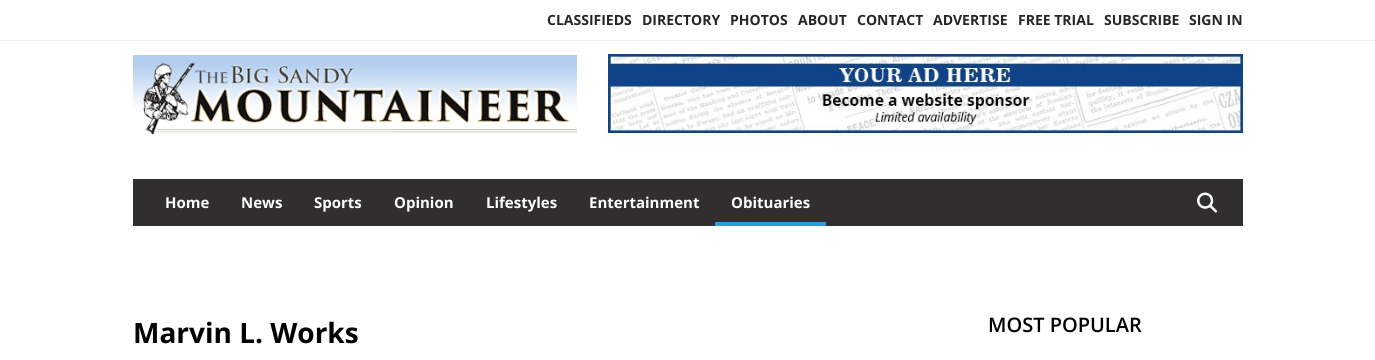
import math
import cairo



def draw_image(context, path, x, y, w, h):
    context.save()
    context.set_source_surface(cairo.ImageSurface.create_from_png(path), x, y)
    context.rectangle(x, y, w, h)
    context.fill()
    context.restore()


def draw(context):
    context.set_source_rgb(1, 1, 1)
    context.paint()
    context.set_source_rgb(237 / 255, 237 / 255, 237 / 255)
    context.rectangle(0, 40, 1375, 1)
    context.fill()
    draw_image(context, "images/1.png", 133, 55, 444, 80)
    draw_image(context, "images/2.png", 608, 54, 635, 79)
    context.set_source_rgb(49 / 255, 46 / 255, 47 / 255)
    context.rectangle(133, 179, 1110, 47)
    context.fill()
    context.set_source_rgb(46 / 255, 154 / 255, 224 / 255)
    context.rectangle(715, 222, 111, 4)
    context.fill()
    draw_image(context, "images/3.png", 1197, 192, 20, 21)
    context.select_font_face("Open Sans", cairo.FontSlant.NORMAL, cairo.FontWeight.BOLD)
    context.set_font_size(14)
    context.set_source_rgb(38 / 255, 38 / 255, 38 / 255)
    context.move_to(547, 25)
    context.show_text("CLASSIFIEDS")
    context.move_to(642, 25)
    context.show_text("DIRECTORY")
    context.move_to(730, 25)
    context.show_text("PHOTOS")
    context.move_to(798, 25)
    context.show_text("ABOUT")
    context.move_to(857, 25)
    context.show_text("CONTACT")
    context.move_to(933, 25)
    context.show_text("ADVERTISE")
    context.move_to(1018, 25)
    context.show_text("FREE TRIAL")
    context.move_to(1104, 25)
    context.show_text("SUBSCRIBE")
    context.move_to(1189, 25)
    context.show_text("SIGN IN")
    context.set_font_size(15)
    context.set_source_rgb(1, 1, 1)
    context.move_to(165, 208)
    context.show_text("Home")
    context.move_to(241, 208)
    context.show_text("News")
    context.move_to(314, 208)
    context.show_text("Sports")
    context.move_to(394, 208)
    context.show_text("Opinion")
    context.move_to(486, 208)
    context.show_text("Lifestyles")
    context.move_to(589, 208)
    context.show_text("Entertainment")
    context.move_to(731, 208)
    context.show_text("Obituaries")
    context.set_font_size(28)
    context.set_source_rgb(0, 0, 0)
    context.move_to(133, 343)
    context.show_text("Marvin L. Works")
    context.select_font_face("Open Sans SemiBold")
    context.set_font_size(20)
    context.move_to(988, 332)
    context.show_text("MOST POPULAR")


surface = cairo.ImageSurface(cairo.Format.RGB24, 1375, 360)
context = cairo.Context(surface)
options = cairo.FontOptions()
options.set_hint_metrics(cairo.HintMetrics.OFF)
options.set_hint_style(cairo.HintStyle.NONE)
context.set_font_options(options)
context.set_miter_limit(4)
draw(context)
surface.write_to_png("out.png")
